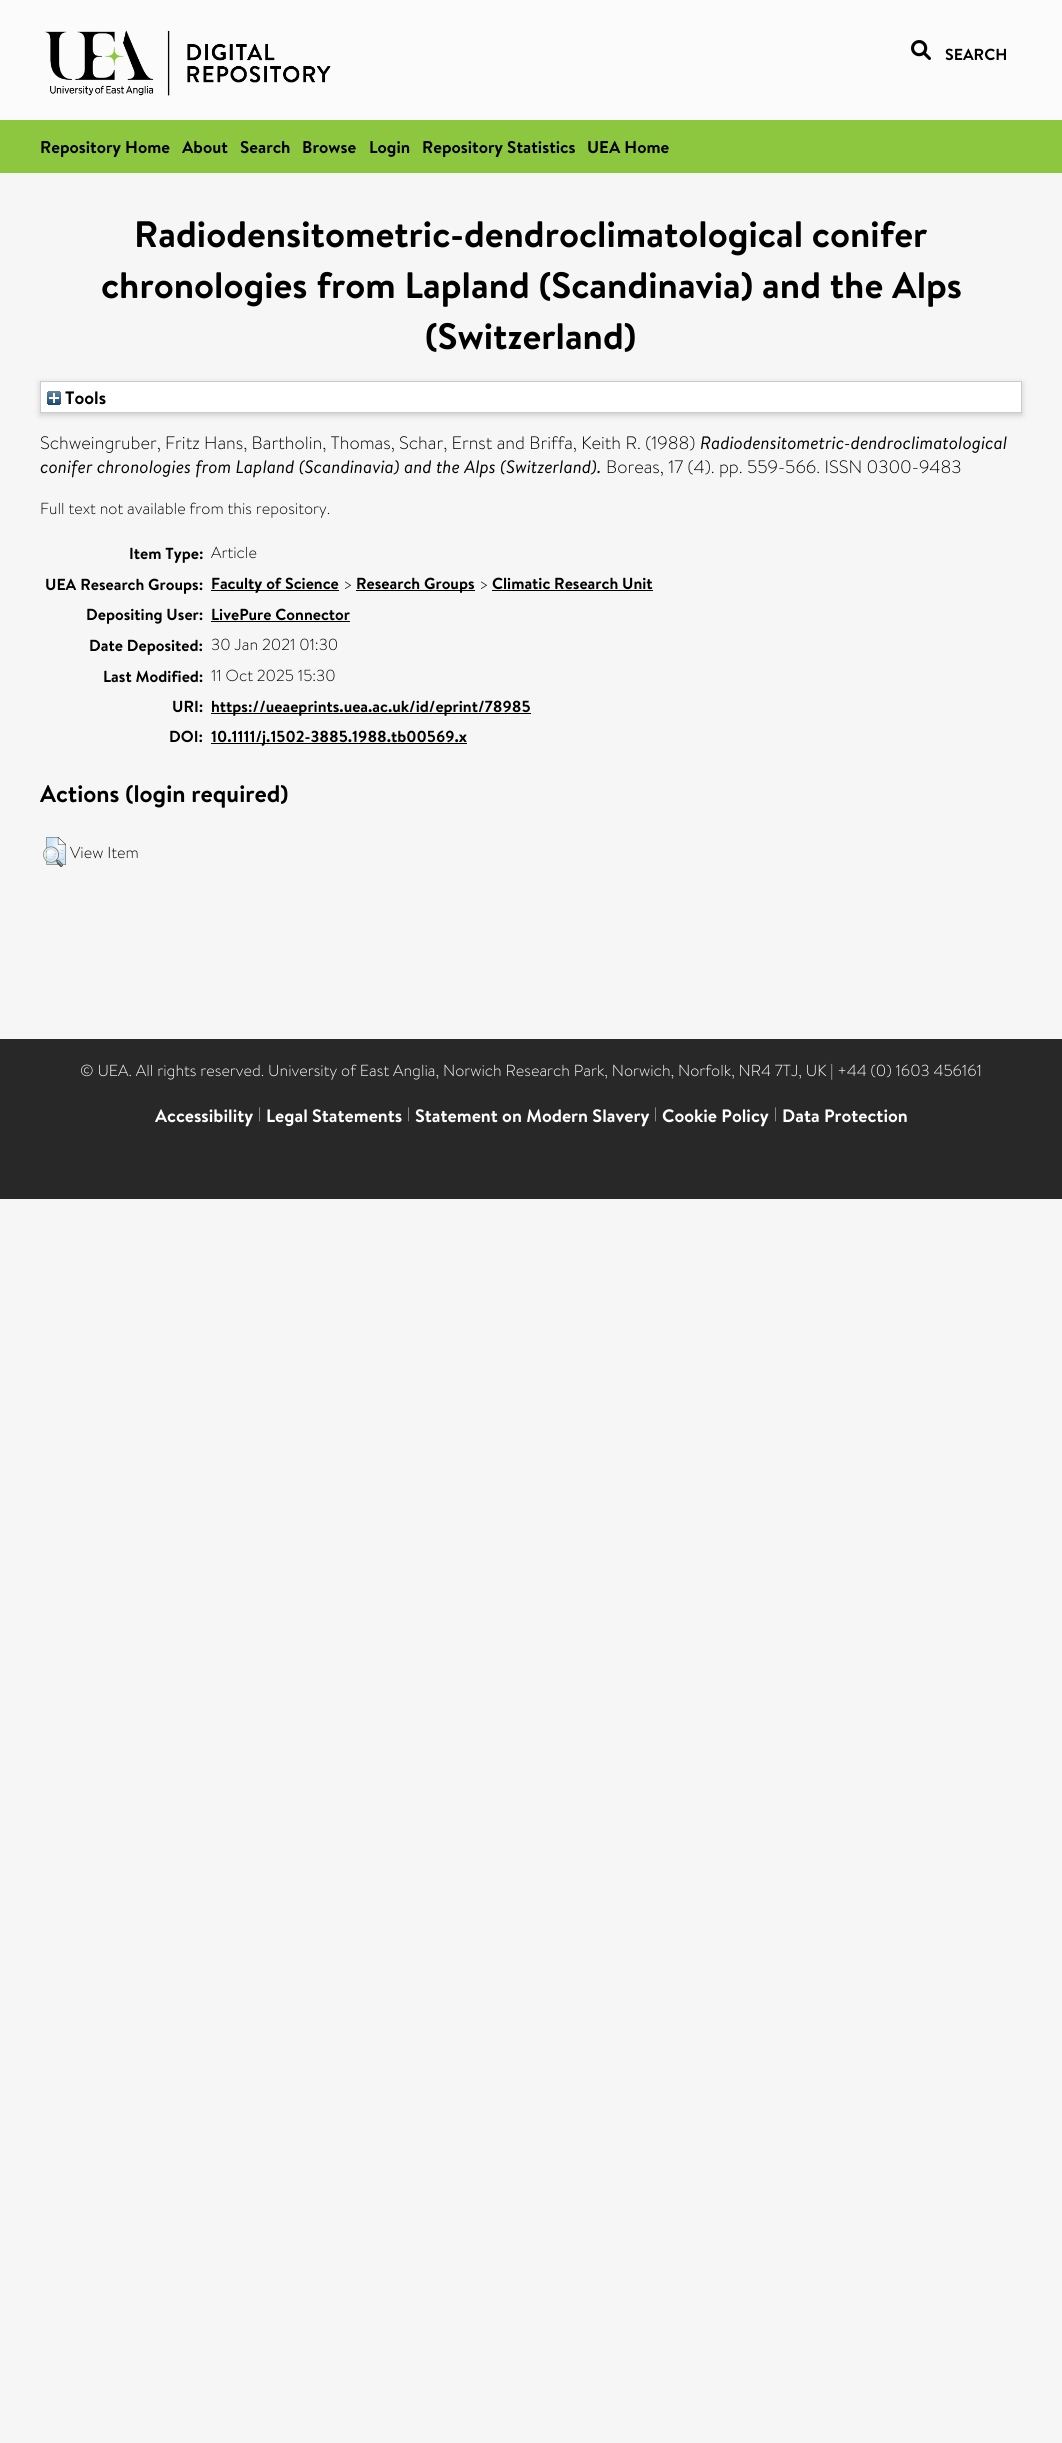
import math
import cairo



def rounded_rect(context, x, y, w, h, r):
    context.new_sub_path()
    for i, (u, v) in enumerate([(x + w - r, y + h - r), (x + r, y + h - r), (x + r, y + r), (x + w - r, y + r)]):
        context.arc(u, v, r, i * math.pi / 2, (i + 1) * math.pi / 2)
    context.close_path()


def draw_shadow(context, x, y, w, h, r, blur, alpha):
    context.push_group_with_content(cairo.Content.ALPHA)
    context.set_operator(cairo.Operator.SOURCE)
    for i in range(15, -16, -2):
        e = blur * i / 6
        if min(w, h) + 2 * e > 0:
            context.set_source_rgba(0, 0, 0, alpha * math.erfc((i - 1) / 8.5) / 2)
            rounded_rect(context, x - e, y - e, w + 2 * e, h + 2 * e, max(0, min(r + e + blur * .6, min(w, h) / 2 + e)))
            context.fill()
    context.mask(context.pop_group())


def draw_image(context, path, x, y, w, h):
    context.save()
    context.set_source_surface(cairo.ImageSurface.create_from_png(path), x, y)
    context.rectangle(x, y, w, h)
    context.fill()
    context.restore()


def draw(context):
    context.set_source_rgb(246 / 255, 246 / 255, 246 / 255)
    context.paint()
    context.set_source_rgb(251 / 255, 251 / 255, 251 / 255)
    context.rectangle(0, 0, 1062, 120)
    context.fill()
    draw_image(context, "images/1.png", 45, 30, 286, 66)
    draw_image(context, "images/2.png", 911, 40, 20, 20)
    context.set_source_rgb(141 / 255, 198 / 255, 63 / 255)
    context.rectangle(0, 120, 1062, 53)
    context.fill()
    context.set_source_rgb(100 / 255, 100 / 255, 100 / 255)
    draw_shadow(context, 40, 383, 982, 32, 0, 3, 0.3)
    context.set_source_rgb(1, 1, 1)
    context.rectangle(40.5, 381.5, 981, 31)
    context.fill_preserve()
    context.set_source_rgb(204 / 255, 204 / 255, 204 / 255)
    context.set_line_width(1)
    context.stroke()
    draw_image(context, "images/3.png", 47, 391, 14, 14)
    context.set_source_rgb(0, 0, 0)
    context.rectangle(211, 590, 128, 1)
    context.fill()
    context.rectangle(356, 590, 119, 1)
    context.fill()
    context.rectangle(492, 590, 161, 1)
    context.fill()
    context.rectangle(211, 621, 139, 1)
    context.fill()
    context.rectangle(211, 713, 320, 1)
    context.fill()
    context.rectangle(211, 743, 256, 1)
    context.fill()
    draw_image(context, "images/4.png", 43, 837, 23, 30)
    context.set_source_rgb(40 / 255, 40 / 255, 40 / 255)
    context.rectangle(0, 1039, 1062, 160)
    context.fill()
    context.select_font_face("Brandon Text", cairo.FontSlant.NORMAL, cairo.FontWeight.BOLD)
    context.set_font_size(16)
    context.set_source_rgb(0, 0, 0)
    context.move_to(945, 60)
    context.show_text("SEARCH")
    context.set_font_size(17)
    context.move_to(40, 153)
    context.show_text("Repository Home")
    context.move_to(182, 153)
    context.show_text("About")
    context.move_to(240, 153)
    context.show_text("Search")
    context.move_to(302, 153)
    context.show_text("Browse")
    context.move_to(369, 153)
    context.show_text("Login")
    context.move_to(422, 153)
    context.show_text("Repository Statistics")
    context.move_to(587, 153)
    context.show_text("UEA Home")
    context.set_font_size(36.8)
    context.move_to(134, 247)
    context.show_text("Radiodensitometric-dendroclimatological conifer")
    context.move_to(101, 298)
    context.show_text("chronologies from Lapland (Scandinavia) and the Alps")
    context.move_to(425, 349)
    context.show_text("(Switzerland)")
    context.set_font_size(18)
    context.move_to(65, 404)
    context.show_text("Tools")
    context.select_font_face("Brandon Text Light")
    context.move_to(40, 449)
    context.show_text("Schweingruber, Fritz Hans, Bartholin, Thomas, Schar, Ernst and Briffa, Keith R. (1988)")
    context.select_font_face("Brandon Text", cairo.FontSlant.ITALIC)
    context.move_to(700, 449)
    context.show_text("Radiodensitometric-dendroclimatological")
    context.move_to(40, 473)
    context.show_text("conifer chronologies from Lapland (Scandinavia) and the Alps (Switzerland).")
    context.select_font_face("Brandon Text Light")
    context.move_to(606, 473)
    context.show_text("Boreas, 17 (4). pp. 559-566. ISSN 0300-9483")
    context.set_font_size(16)
    context.move_to(40, 514)
    context.show_text("Full text not available from this repository.")
    context.select_font_face("Brandon Text", cairo.FontSlant.NORMAL, cairo.FontWeight.BOLD)
    context.move_to(129, 559)
    context.show_text("Item Type:")
    context.select_font_face("Brandon Text Light")
    context.move_to(211, 558)
    context.show_text("Article")
    context.select_font_face("Brandon Text", cairo.FontSlant.NORMAL, cairo.FontWeight.BOLD)
    context.move_to(45, 590)
    context.show_text("UEA Research Groups:")
    context.move_to(211, 589)
    context.show_text("Faculty of Science")
    context.select_font_face("Brandon Text Light")
    context.move_to(343, 589)
    context.show_text(">")
    context.select_font_face("Brandon Text", cairo.FontSlant.NORMAL, cairo.FontWeight.BOLD)
    context.move_to(356, 589)
    context.show_text("Research Groups")
    context.select_font_face("Brandon Text Light")
    context.move_to(479, 589)
    context.show_text(">")
    context.select_font_face("Brandon Text", cairo.FontSlant.NORMAL, cairo.FontWeight.BOLD)
    context.move_to(492, 589)
    context.show_text("Climatic Research Unit")
    context.move_to(86, 620)
    context.show_text("Depositing User:")
    context.move_to(211, 620)
    context.show_text("LivePure Connector")
    context.move_to(89, 651)
    context.show_text("Date Deposited:")
    context.select_font_face("Brandon Text Light")
    context.move_to(211, 650)
    context.show_text("30 Jan 2021 01:30")
    context.select_font_face("Brandon Text", cairo.FontSlant.NORMAL, cairo.FontWeight.BOLD)
    context.move_to(103, 682)
    context.show_text("Last Modified:")
    context.select_font_face("Brandon Text Light")
    context.move_to(211, 681)
    context.show_text("11 Oct 2025 15:30")
    context.select_font_face("Brandon Text", cairo.FontSlant.NORMAL, cairo.FontWeight.BOLD)
    context.move_to(172, 712)
    context.show_text("URI:")
    context.move_to(211, 712)
    context.show_text("https://ueaeprints.uea.ac.uk/id/eprint/78985")
    context.move_to(169, 742)
    context.show_text("DOI:")
    context.move_to(211, 742)
    context.show_text("10.1111/j.1502-3885.1988.tb00569.x")
    context.set_font_size(24)
    context.move_to(40, 802)
    context.show_text("Actions (login required)")
    context.select_font_face("Brandon Text Light")
    context.set_font_size(16)
    context.move_to(70, 858)
    context.show_text("View Item")
    context.set_source_rgb(1, 1, 1)
    context.move_to(80, 1076)
    context.show_text("© UEA. All rights reserved. University of East Anglia, Norwich Research Park, Norwich, Norfolk, NR4 7TJ, UK | +44 (0) 1603 456161")
    context.select_font_face("Brandon Text", cairo.FontSlant.NORMAL, cairo.FontWeight.BOLD)
    context.set_font_size(18)
    context.move_to(155, 1122)
    context.show_text("Accessibility")
    context.select_font_face("Brandon Text Light")
    context.set_font_size(14)
    context.move_to(258, 1118)
    context.show_text("|")
    context.select_font_face("Brandon Text", cairo.FontSlant.NORMAL, cairo.FontWeight.BOLD)
    context.set_font_size(18)
    context.move_to(266, 1122)
    context.show_text("Legal Statements")
    context.select_font_face("Brandon Text Light")
    context.set_font_size(14)
    context.move_to(407, 1118)
    context.show_text("|")
    context.select_font_face("Brandon Text", cairo.FontSlant.NORMAL, cairo.FontWeight.BOLD)
    context.set_font_size(18)
    context.move_to(415, 1122)
    context.show_text("Statement on Modern Slavery")
    context.select_font_face("Brandon Text Light")
    context.set_font_size(14)
    context.move_to(654, 1118)
    context.show_text("|")
    context.select_font_face("Brandon Text", cairo.FontSlant.NORMAL, cairo.FontWeight.BOLD)
    context.set_font_size(18)
    context.move_to(662, 1122)
    context.show_text("Cookie Policy")
    context.select_font_face("Brandon Text Light")
    context.set_font_size(14)
    context.move_to(774, 1118)
    context.show_text("|")
    context.select_font_face("Brandon Text", cairo.FontSlant.NORMAL, cairo.FontWeight.BOLD)
    context.set_font_size(18)
    context.move_to(782, 1122)
    context.show_text("Data Protection")


surface = cairo.ImageSurface(cairo.Format.RGB24, 1062, 2443)
context = cairo.Context(surface)
options = cairo.FontOptions()
options.set_hint_metrics(cairo.HintMetrics.OFF)
options.set_hint_style(cairo.HintStyle.NONE)
context.set_font_options(options)
context.set_miter_limit(4)
draw(context)
surface.write_to_png("out.png")
